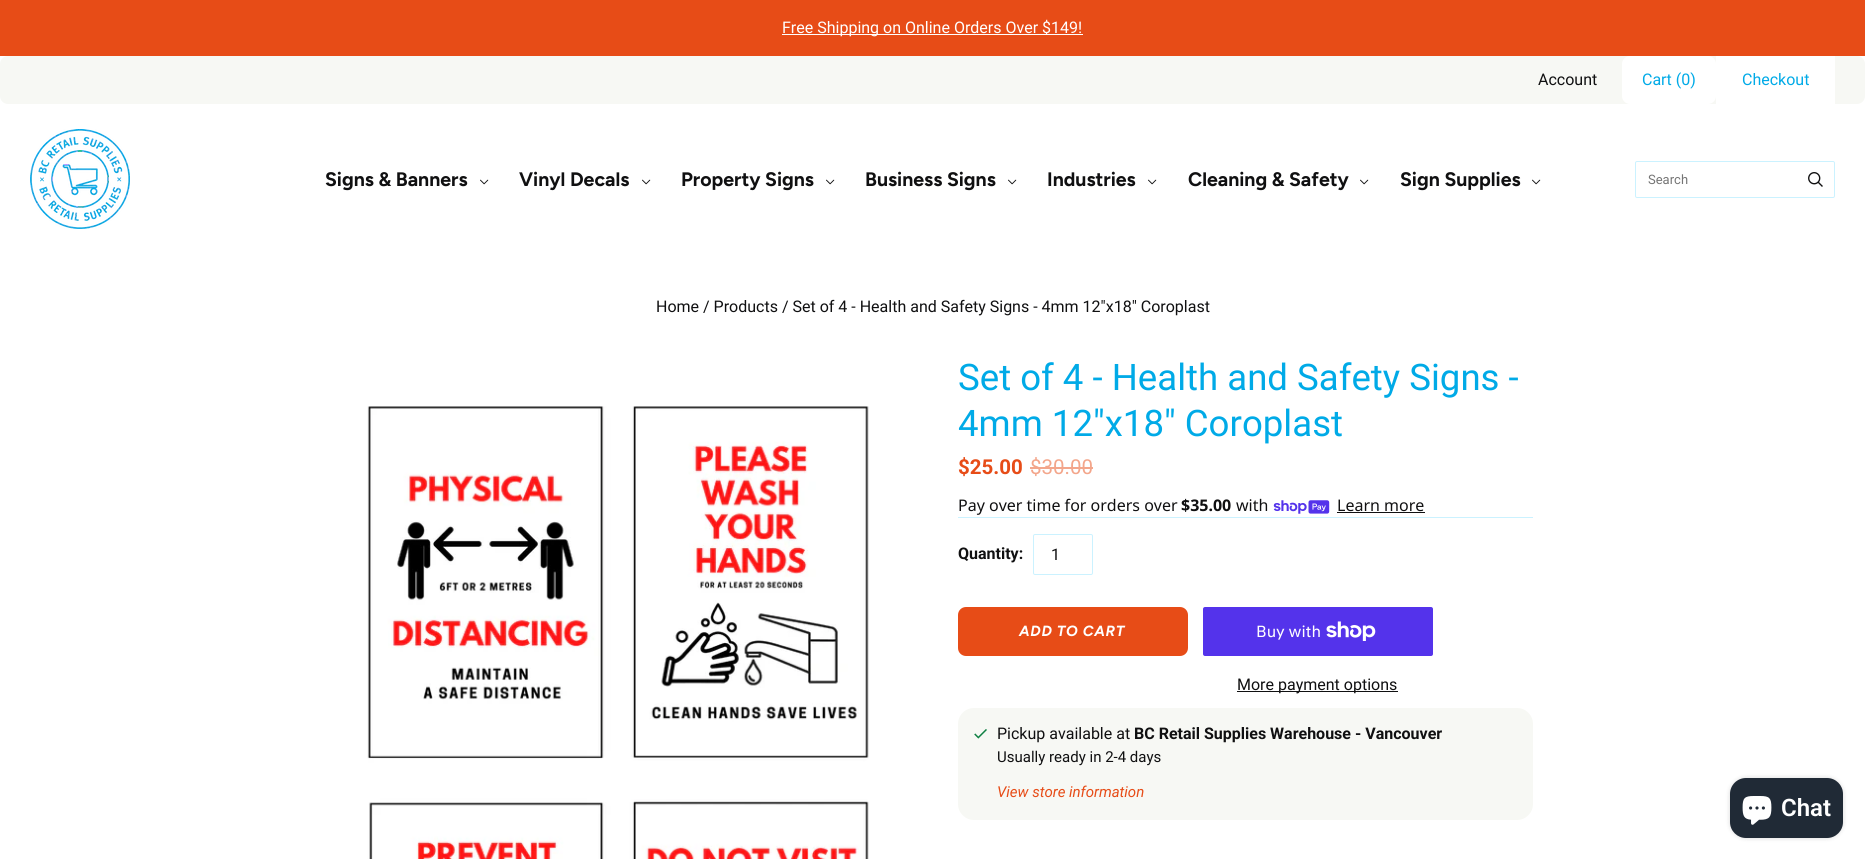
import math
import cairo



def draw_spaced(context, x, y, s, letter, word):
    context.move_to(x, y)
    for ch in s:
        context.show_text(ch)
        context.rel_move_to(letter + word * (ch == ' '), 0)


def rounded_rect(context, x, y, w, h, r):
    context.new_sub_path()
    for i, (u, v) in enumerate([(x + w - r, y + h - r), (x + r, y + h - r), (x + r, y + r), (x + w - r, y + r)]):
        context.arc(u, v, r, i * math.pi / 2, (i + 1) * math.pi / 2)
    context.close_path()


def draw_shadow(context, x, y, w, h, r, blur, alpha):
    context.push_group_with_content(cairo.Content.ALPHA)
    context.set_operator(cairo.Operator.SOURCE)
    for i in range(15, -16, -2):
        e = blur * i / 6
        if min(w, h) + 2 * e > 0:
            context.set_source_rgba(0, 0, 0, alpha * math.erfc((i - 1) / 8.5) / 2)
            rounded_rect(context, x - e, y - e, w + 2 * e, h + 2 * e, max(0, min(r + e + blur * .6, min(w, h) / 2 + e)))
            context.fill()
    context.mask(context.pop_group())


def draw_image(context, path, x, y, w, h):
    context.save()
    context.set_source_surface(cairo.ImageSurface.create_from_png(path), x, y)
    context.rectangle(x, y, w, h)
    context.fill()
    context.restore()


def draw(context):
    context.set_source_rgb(1, 1, 1)
    context.paint()
    context.set_source_rgb(231 / 255, 76 / 255, 23 / 255)
    context.rectangle(0, 0, 1865, 56)
    context.fill()
    context.set_source_rgb(1, 1, 1)
    context.rectangle(782, 34, 301, 1)
    context.fill()
    context.set_source_rgb(247 / 255, 248 / 255, 244 / 255)
    rounded_rect(context, 0, 56, 1865, 48, 8)
    context.fill()
    context.set_source_rgb(1, 1, 1)
    rounded_rect(context, 1622, 56, 94, 48, 8)
    context.fill()
    context.rectangle(1716, 56, 119, 48)
    context.fill()
    draw_image(context, "images/1.png", 30, 129, 100, 100)
    draw_image(context, "images/2.png", 480, 179, 9, 6)
    draw_image(context, "images/2.png", 642, 179, 9, 6)
    draw_image(context, "images/2.png", 826, 179, 9, 6)
    draw_image(context, "images/2.png", 1008, 179, 9, 6)
    draw_image(context, "images/2.png", 1148, 179, 9, 6)
    draw_image(context, "images/2.png", 1360, 179, 9, 6)
    draw_image(context, "images/2.png", 1532, 179, 9, 6)
    rounded_rect(context, 1635.5, 161.5, 199, 36, 1.5)
    context.set_source_rgb(203 / 255, 242 / 255, 1)
    context.set_line_width(1)
    context.stroke()
    draw_image(context, "images/3.png", 1808, 172, 15, 15)
    draw_image(context, "images/4.png", 367, 406, 502, 453)
    context.set_source_rgb(243 / 255, 166 / 255, 139 / 255)
    context.rectangle(1030, 467, 63, 2)
    context.fill()
    draw_image(context, "images/5.png", 1273, 500, 57, 14)
    context.set_source_rgb(16 / 255, 16 / 255, 17 / 255)
    context.rectangle(1337, 512, 88, 1)
    context.fill()
    context.set_source_rgb(203 / 255, 242 / 255, 1)
    context.rectangle(958, 517, 575, 1)
    context.fill()
    rounded_rect(context, 1033.5, 534.5, 59, 40, 1.5)
    context.stroke()
    context.set_source_rgb(231 / 255, 76 / 255, 23 / 255)
    rounded_rect(context, 958, 607, 230, 49, 8)
    context.fill()
    context.set_source_rgb(84 / 255, 51 / 255, 235 / 255)
    rounded_rect(context, 1203, 607, 230, 49, 2)
    context.fill()
    draw_image(context, "images/6.png", 1326, 621, 50, 20)
    context.set_source_rgb(16 / 255, 16 / 255, 17 / 255)
    context.rectangle(1237, 691, 161, 1)
    context.fill()
    context.set_source_rgb(247 / 255, 248 / 255, 244 / 255)
    rounded_rect(context, 958, 708, 575, 112, 16)
    context.fill()
    draw_image(context, "images/7.png", 974, 729, 13, 10)
    context.set_source_rgb(0, 0, 0)
    draw_shadow(context, 1730, 778, 113, 60, 16, 2.5, 0.15)
    context.set_source_rgb(32 / 255, 42 / 255, 54 / 255)
    rounded_rect(context, 1730, 778, 113, 60, 16)
    context.fill()
    draw_image(context, "images/8.png", 1742, 796, 30, 29)
    context.select_font_face("Roboto")
    context.set_font_size(16)
    context.set_source_rgb(1, 1, 1)
    context.move_to(782, 33)
    context.show_text("Free Shipping on Online Orders Over $149!")
    context.set_source_rgb(16 / 255, 16 / 255, 17 / 255)
    context.move_to(1538, 85)
    context.show_text("Account")
    context.set_source_rgb(0, 170 / 255, 231 / 255)
    context.move_to(1642, 85)
    context.show_text("Cart (0)")
    context.move_to(1742, 85)
    context.show_text("Checkout")
    context.select_font_face("Figtree", cairo.FontSlant.NORMAL, cairo.FontWeight.BOLD)
    context.set_font_size(19.5)
    context.set_source_rgb(16 / 255, 16 / 255, 17 / 255)
    context.move_to(325, 186)
    context.show_text("Signs & Banners")
    context.move_to(519, 186)
    context.show_text("Vinyl Decals")
    context.move_to(681, 186)
    context.show_text("Property Signs")
    context.move_to(865, 186)
    context.show_text("Business Signs")
    context.move_to(1047, 186)
    context.show_text("Industries")
    context.move_to(1188, 186)
    context.show_text("Cleaning & Safety")
    context.move_to(1400, 186)
    context.show_text("Sign Supplies")
    context.select_font_face("Roboto")
    context.set_font_size(13)
    context.set_source_rgb(117 / 255, 117 / 255, 117 / 255)
    context.move_to(1648, 184)
    context.show_text("Search")
    context.set_font_size(16)
    context.set_source_rgb(16 / 255, 16 / 255, 17 / 255)
    context.move_to(656, 312)
    context.show_text("Home / Products / Set of 4 - Health and Safety Signs - 4mm 12\"x18\" Coroplast")
    context.set_font_size(36.6)
    context.set_source_rgb(0, 170 / 255, 231 / 255)
    context.move_to(958, 390)
    context.show_text("Set of 4 - Health and Safety Signs -")
    context.move_to(958, 436)
    context.show_text("4mm 12\"x18\" Coroplast")
    context.select_font_face("Roboto", cairo.FontSlant.NORMAL, cairo.FontWeight.BOLD)
    context.set_font_size(20.5)
    context.set_source_rgb(231 / 255, 76 / 255, 23 / 255)
    context.move_to(958, 474)
    context.show_text("$25.00")
    context.select_font_face("Roboto")
    context.set_source_rgb(243 / 255, 166 / 255, 139 / 255)
    context.move_to(1030, 474)
    context.show_text("$30.00")
    context.select_font_face("Noto Sans")
    context.set_font_size(16)
    context.set_source_rgb(16 / 255, 16 / 255, 17 / 255)
    context.move_to(958, 511)
    context.show_text("Pay over time for orders over")
    context.select_font_face("Noto Sans", cairo.FontSlant.NORMAL, cairo.FontWeight.BOLD)
    context.move_to(1181, 511)
    context.show_text("$35.00")
    context.select_font_face("Noto Sans")
    context.move_to(1236, 511)
    context.show_text("with")
    context.move_to(1337, 511)
    context.show_text("Learn more")
    context.select_font_face("Roboto", cairo.FontSlant.NORMAL, cairo.FontWeight.BOLD)
    context.move_to(958, 559)
    context.show_text("Quantity:")
    context.select_font_face("Roboto")
    context.move_to(1051, 560)
    context.show_text("1")
    context.select_font_face("Figtree", cairo.FontSlant.ITALIC, cairo.FontWeight.BOLD)
    context.set_font_size(14.75)
    context.set_source_rgb(1, 1, 1)
    draw_spaced(context, 1019, 636, "ADD TO CART", 0.75, 0)
    context.select_font_face("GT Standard")
    context.set_font_size(16)
    context.move_to(1256, 637)
    context.show_text("Buy with")
    context.select_font_face("Roboto")
    context.set_source_rgb(16 / 255, 16 / 255, 17 / 255)
    context.move_to(1237, 690)
    context.show_text("More payment options")
    context.move_to(997, 739)
    context.show_text("Pickup available at")
    context.select_font_face("Roboto", cairo.FontSlant.NORMAL, cairo.FontWeight.BOLD)
    context.move_to(1134, 739)
    context.show_text("BC Retail Supplies Warehouse - Vancouver")
    context.select_font_face("Roboto")
    context.set_font_size(15)
    context.move_to(997, 762)
    context.show_text("Usually ready in 2-4 days")
    context.select_font_face("Roboto", cairo.FontSlant.ITALIC)
    context.set_source_rgb(231 / 255, 76 / 255, 23 / 255)
    context.move_to(997, 797)
    context.show_text("View store information")
    context.select_font_face("Roboto SemiBold")
    context.set_font_size(24)
    context.set_source_rgb(1, 1, 1)
    context.move_to(1781, 816)
    context.show_text("Chat")


surface = cairo.ImageSurface(cairo.Format.RGB24, 1865, 859)
context = cairo.Context(surface)
options = cairo.FontOptions()
options.set_hint_metrics(cairo.HintMetrics.OFF)
options.set_hint_style(cairo.HintStyle.NONE)
context.set_font_options(options)
context.set_miter_limit(4)
draw(context)
surface.write_to_png("out.png")
